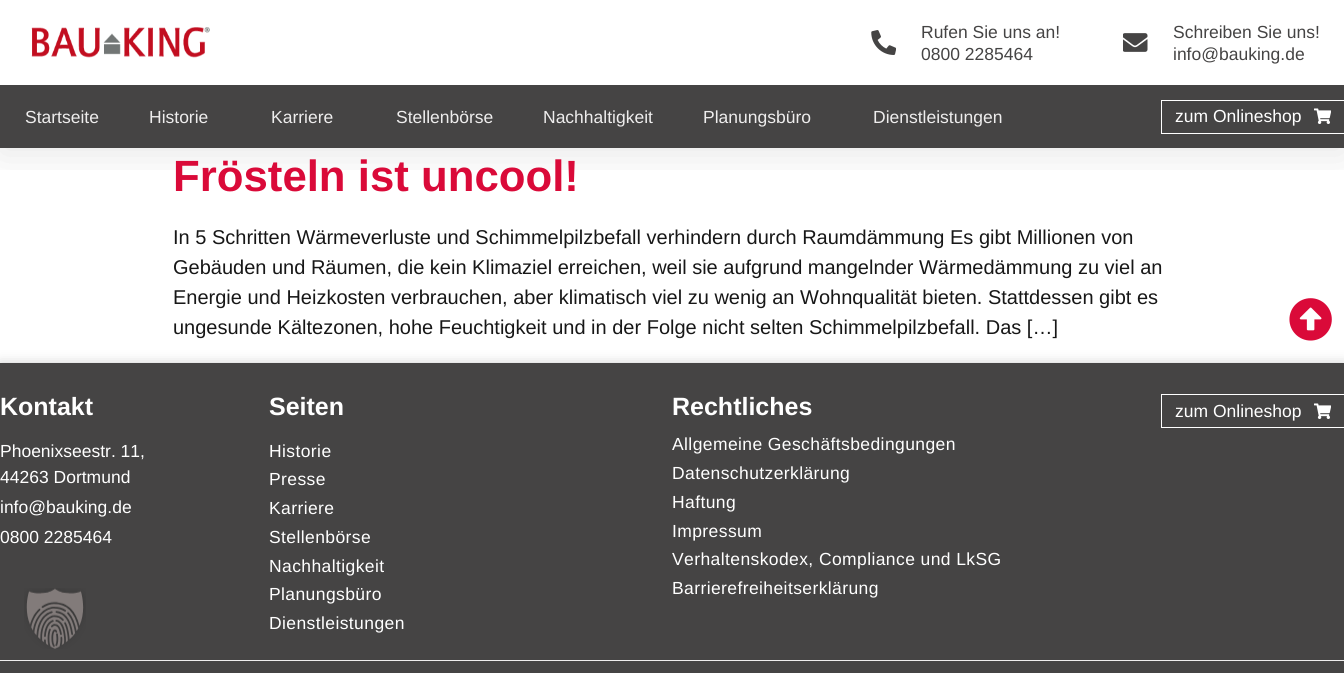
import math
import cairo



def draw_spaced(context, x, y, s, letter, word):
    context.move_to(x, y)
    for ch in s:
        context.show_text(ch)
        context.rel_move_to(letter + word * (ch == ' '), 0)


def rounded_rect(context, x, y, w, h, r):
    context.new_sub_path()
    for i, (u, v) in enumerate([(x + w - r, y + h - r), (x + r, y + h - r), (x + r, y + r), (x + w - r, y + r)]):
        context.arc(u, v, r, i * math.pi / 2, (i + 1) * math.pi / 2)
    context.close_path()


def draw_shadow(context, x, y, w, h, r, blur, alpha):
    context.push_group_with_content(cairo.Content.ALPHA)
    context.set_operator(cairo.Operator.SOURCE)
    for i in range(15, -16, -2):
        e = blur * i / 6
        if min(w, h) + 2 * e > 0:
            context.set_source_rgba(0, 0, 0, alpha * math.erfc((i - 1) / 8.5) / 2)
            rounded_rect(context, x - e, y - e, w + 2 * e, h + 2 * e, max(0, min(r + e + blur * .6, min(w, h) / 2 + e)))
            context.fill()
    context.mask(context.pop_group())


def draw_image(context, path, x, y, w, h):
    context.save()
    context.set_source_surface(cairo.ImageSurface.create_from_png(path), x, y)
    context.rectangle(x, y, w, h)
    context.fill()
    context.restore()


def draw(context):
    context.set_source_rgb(1, 1, 1)
    context.paint()
    context.save()
    context.rectangle(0, 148, 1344, 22)
    context.clip()
    context.set_source_rgb(0, 0, 0)
    draw_shadow(context, 0, 6, 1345, 148, 0, 19, 0.1)
    context.restore()
    draw_image(context, "images/1.png", 31, 27, 179, 31)
    draw_image(context, "images/2.png", 871, 30, 25, 25)
    draw_image(context, "images/3.png", 1123, 33, 25, 19)
    context.set_source_rgb(69 / 255, 68 / 255, 68 / 255)
    context.rectangle(0, 85, 1344, 63)
    context.fill()
    context.rectangle(1161.5, 100.5, 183, 33)
    context.set_source_rgb(1, 1, 1)
    context.set_line_width(1)
    context.stroke()
    draw_image(context, "images/4.png", 1314, 108, 17, 16)
    draw_image(context, "images/5.png", 1289, 298, 43, 43)
    context.set_source_rgb(0, 0, 0)
    draw_shadow(context, 0, 363, 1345, 297, 0, 6, 0.19)
    context.set_source_rgb(69 / 255, 68 / 255, 68 / 255)
    context.rectangle(0, 363, 1344, 297)
    context.fill()
    context.rectangle(1161.5, 394.5, 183, 33)
    context.set_source_rgb(1, 1, 1)
    context.stroke()
    draw_image(context, "images/4.png", 1314, 403, 17, 16)
    context.set_source_rgb(69 / 255, 68 / 255, 68 / 255)
    context.rectangle(0, 661, 1344, 12)
    context.fill()
    context.set_source_rgb(238 / 255, 237 / 255, 237 / 255)
    context.rectangle(0, 660, 1344, 1)
    context.fill()
    draw_image(context, "images/6.png", 24, 588, 62, 61)
    context.select_font_face("Liberation Sans")
    context.set_font_size(17.5)
    context.set_source_rgb(69 / 255, 68 / 255, 68 / 255)
    context.move_to(921, 38)
    context.show_text("Rufen Sie uns an!")
    context.move_to(921, 60)
    context.show_text("0800 2285464")
    context.move_to(1173, 38)
    context.show_text("Schreiben Sie uns!")
    context.move_to(1173, 60)
    context.show_text("info@bauking.de")
    context.set_source_rgb(238 / 255, 237 / 255, 237 / 255)
    context.move_to(25, 123)
    context.show_text("Startseite")
    context.move_to(149, 123)
    context.show_text("Historie")
    context.move_to(271, 123)
    context.show_text("Karriere")
    context.move_to(396, 123)
    context.show_text("Stellenbörse")
    context.move_to(543, 123)
    context.show_text("Nachhaltigkeit")
    context.move_to(703, 123)
    context.show_text("Planungsbüro")
    context.move_to(873, 123)
    context.show_text("Dienstleistungen")
    context.set_source_rgb(1, 1, 1)
    context.move_to(1175, 122)
    context.show_text("zum Onlineshop")
    context.select_font_face("Liberation Sans", cairo.FontSlant.NORMAL, cairo.FontWeight.BOLD)
    context.set_font_size(43.75)
    context.set_source_rgb(218 / 255, 10 / 255, 57 / 255)
    context.move_to(173, 191)
    context.show_text("Frösteln ist uncool!")
    context.select_font_face("Liberation Sans")
    context.set_font_size(20)
    context.set_source_rgb(23 / 255, 23 / 255, 23 / 255)
    context.move_to(173, 244)
    context.show_text("In 5 Schritten Wärmeverluste und Schimmelpilzbefall verhindern durch Raumdämmung Es gibt Millionen von")
    context.move_to(173, 274)
    context.show_text("Gebäuden und Räumen, die kein Klimaziel erreichen, weil sie aufgrund mangelnder Wärmedämmung zu viel an")
    context.move_to(173, 304)
    context.show_text("Energie und Heizkosten verbrauchen, aber klimatisch viel zu wenig an Wohnqualität bieten. Stattdessen gibt es")
    context.move_to(173, 334)
    context.show_text("ungesunde Kältezonen, hohe Feuchtigkeit und in der Folge nicht selten Schimmelpilzbefall. Das […]")
    context.select_font_face("Liberation Sans", cairo.FontSlant.NORMAL, cairo.FontWeight.BOLD)
    context.set_font_size(25)
    context.set_source_rgb(1, 1, 1)
    context.move_to(0, 415)
    context.show_text("Kontakt")
    context.select_font_face("Liberation Sans")
    context.set_font_size(17.5)
    context.move_to(0, 457)
    context.show_text("Phoenixseestr. 11,")
    context.move_to(0, 483)
    context.show_text("44263 Dortmund")
    context.move_to(0, 513)
    context.show_text("info@bauking.de")
    context.move_to(0, 543)
    context.show_text("0800 2285464")
    context.select_font_face("Liberation Sans", cairo.FontSlant.NORMAL, cairo.FontWeight.BOLD)
    context.set_font_size(25)
    context.move_to(269, 415)
    context.show_text("Seiten")
    context.select_font_face("Liberation Sans")
    context.set_font_size(17.5)
    draw_spaced(context, 269, 457, "Historie", 0.4, 0)
    draw_spaced(context, 269, 485, "Presse", 0.4, 0)
    draw_spaced(context, 269, 514, "Karriere", 0.4, 0)
    draw_spaced(context, 269, 543, "Stellenbörse", 0.4, 0)
    draw_spaced(context, 269, 572, "Nachhaltigkeit", 0.4, 0)
    draw_spaced(context, 269, 600, "Planungsbüro", 0.4, 0)
    draw_spaced(context, 269, 629, "Dienstleistungen", 0.4, 0)
    context.select_font_face("Liberation Sans", cairo.FontSlant.NORMAL, cairo.FontWeight.BOLD)
    context.set_font_size(25)
    context.move_to(672, 415)
    context.show_text("Rechtliches")
    context.select_font_face("Liberation Sans")
    context.set_font_size(17.5)
    draw_spaced(context, 672, 450, "Allgemeine Geschäftsbedingungen", 0.4, 0)
    draw_spaced(context, 672, 479, "Datenschutzerklärung", 0.4, 0)
    draw_spaced(context, 672, 508, "Haftung", 0.4, 0)
    draw_spaced(context, 672, 537, "Impressum", 0.4, 0)
    draw_spaced(context, 672, 565, "Verhaltenskodex, Compliance und LkSG", 0.4, 0)
    draw_spaced(context, 672, 594, "Barrierefreiheitserklärung", 0.4, 0)
    context.move_to(1175, 417)
    context.show_text("zum Onlineshop")


surface = cairo.ImageSurface(cairo.Format.RGB24, 1344, 673)
context = cairo.Context(surface)
options = cairo.FontOptions()
options.set_hint_metrics(cairo.HintMetrics.OFF)
options.set_hint_style(cairo.HintStyle.NONE)
context.set_font_options(options)
context.set_miter_limit(4)
draw(context)
surface.write_to_png("out.png")
